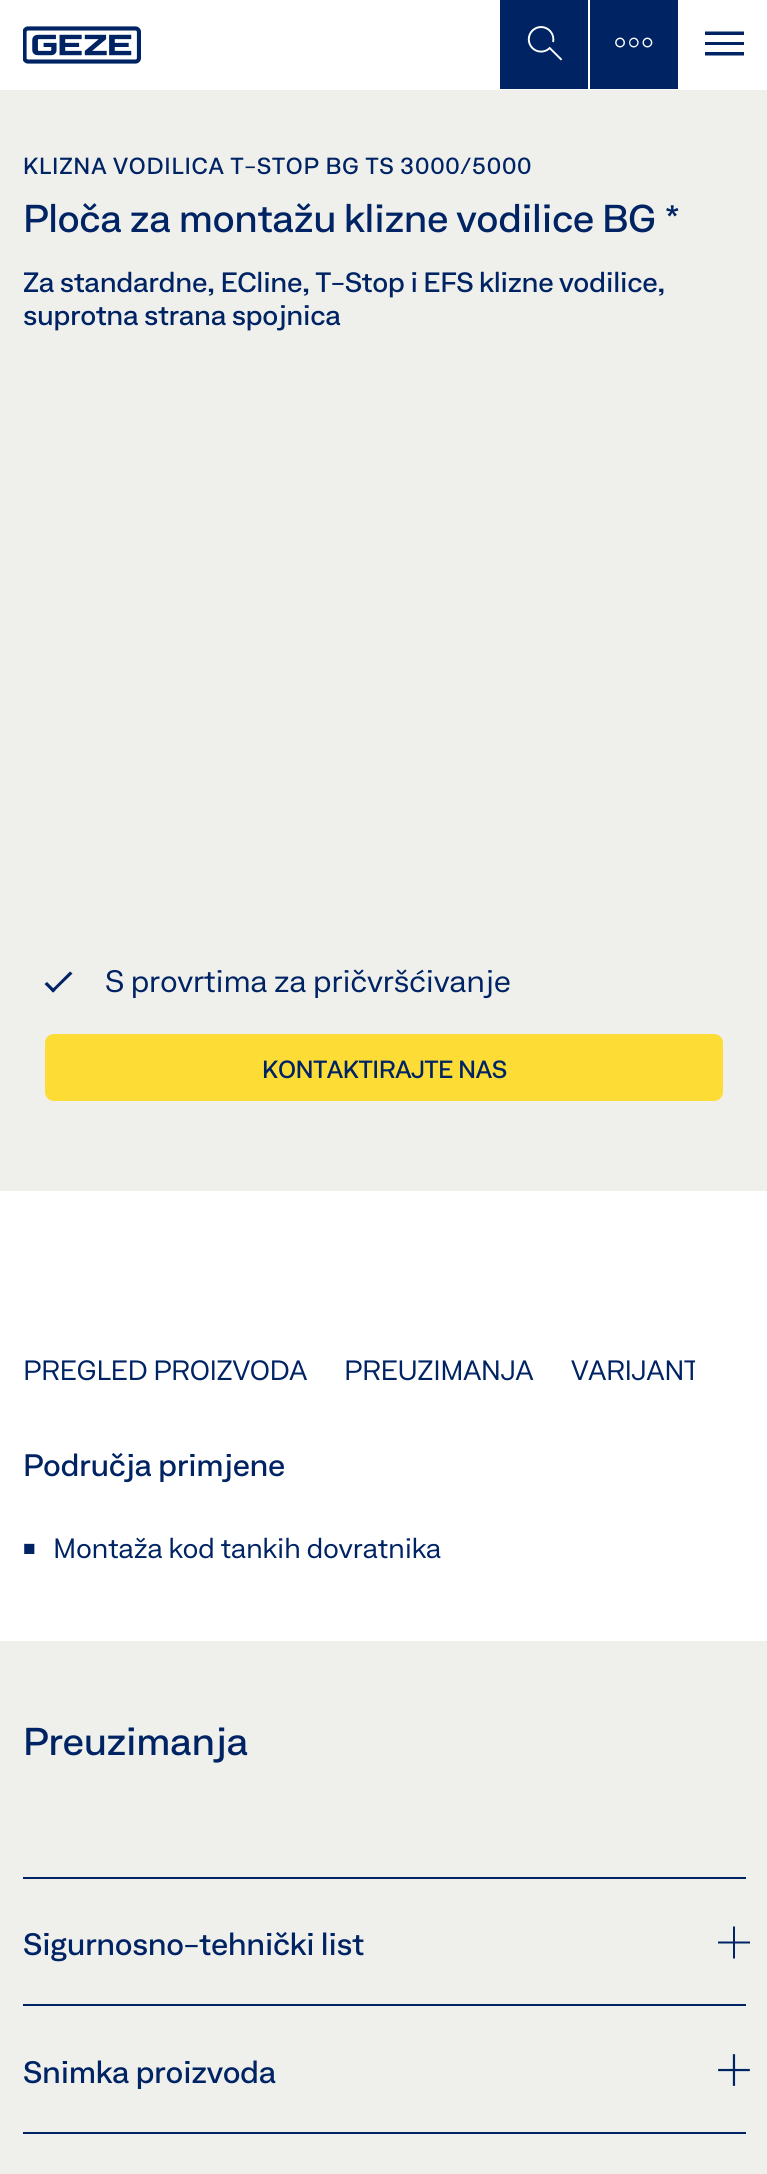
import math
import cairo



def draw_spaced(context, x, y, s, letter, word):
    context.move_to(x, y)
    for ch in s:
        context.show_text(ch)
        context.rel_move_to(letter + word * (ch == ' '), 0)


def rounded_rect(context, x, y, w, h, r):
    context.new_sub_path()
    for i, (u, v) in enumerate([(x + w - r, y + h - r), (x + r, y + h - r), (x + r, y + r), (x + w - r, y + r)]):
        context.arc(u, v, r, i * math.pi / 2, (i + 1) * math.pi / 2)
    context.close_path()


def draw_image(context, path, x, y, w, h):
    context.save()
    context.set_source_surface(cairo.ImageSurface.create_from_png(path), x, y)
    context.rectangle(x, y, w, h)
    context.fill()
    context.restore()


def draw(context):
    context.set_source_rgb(1, 1, 1)
    context.paint()
    draw_image(context, "images/1.png", 23, 26, 118, 38)
    context.set_source_rgb(0, 35 / 255, 100 / 255)
    context.rectangle(500, 0, 88, 89)
    context.fill()
    draw_image(context, "images/2.png", 527, 26, 36, 35)
    context.rectangle(590, 0, 88, 89)
    context.fill()
    draw_image(context, "images/3.png", 615, 37, 38, 11)
    context.new_path()
    context.move_to(705, 42)
    context.line_to(744, 42)
    context.line_to(744, 45)
    context.line_to(705, 45)
    context.close_path()
    context.move_to(705, 31.5)
    context.line_to(744, 31.5)
    context.line_to(744, 35)
    context.line_to(705, 35)
    context.close_path()
    context.move_to(705, 52)
    context.line_to(744, 52)
    context.line_to(744, 55.5)
    context.line_to(705, 55.5)
    context.close_path()
    context.fill()
    context.set_source_rgb(239 / 255, 240 / 255, 236 / 255)
    context.rectangle(0, 90, 767, 1101)
    context.fill()
    context.set_source_rgb(0, 35 / 255, 100 / 255)
    context.new_path()
    context.move_to(51, 990.5)
    context.line_to(70, 971.5)
    context.line_to(72.5, 973.5)
    context.line_to(53, 992.5)
    context.close_path()
    context.fill()
    context.new_path()
    context.move_to(44.5, 984)
    context.line_to(47, 982)
    context.line_to(55.5, 990.5)
    context.line_to(53, 992.5)
    context.close_path()
    context.fill()
    context.set_source_rgb(253 / 255, 220 / 255, 53 / 255)
    rounded_rect(context, 45, 1034, 678, 67, 9)
    context.fill()
    context.set_source_rgb(239 / 255, 240 / 255, 236 / 255)
    context.rectangle(0, 1641, 767, 533)
    context.fill()
    context.set_source_rgb(0, 35 / 255, 100 / 255)
    context.rectangle(23, 1877, 723, 2)
    context.fill()
    context.new_path()
    context.move_to(750, 1943.5)
    context.line_to(750, 1941.5)
    context.line_to(735, 1941.5)
    context.line_to(735, 1926.5)
    context.line_to(733, 1926.5)
    context.line_to(733, 1941.5)
    context.line_to(718, 1941.5)
    context.line_to(718, 1943.5)
    context.line_to(733, 1943.5)
    context.line_to(733, 1958.5)
    context.line_to(735, 1958.5)
    context.line_to(735, 1943.5)
    context.close_path()
    context.fill()
    context.rectangle(23, 2004, 723, 2)
    context.fill()
    context.rectangle(23, 2132, 723, 2)
    context.fill()
    draw_image(context, "images/4.png", 718, 2054, 32, 32)
    context.select_font_face("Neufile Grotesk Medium")
    context.set_font_size(22.5)
    draw_spaced(context, 23, 174, "KLIZNA VODILICA T-STOP BG TS 3000/5000", 0.75, 0)
    context.set_font_size(37.5)
    draw_spaced(context, 23, 232, "Ploča za montažu klizne vodilice BG *", -0.38, 0)
    context.set_font_size(27)
    draw_spaced(context, 23, 292, "Za standardne, ECline, T-Stop i EFS klizne vodilice,", -0.38, 0)
    draw_spaced(context, 23, 325, "suprotna strana spojnica", -0.38, 0)
    context.select_font_face("Neufile Grotesk")
    context.set_font_size(30)
    draw_spaced(context, 105, 992, "S provrtima za pričvršćivanje", -0.38, 0)
    context.select_font_face("Neufile Grotesk Medium")
    context.set_font_size(24)
    draw_spaced(context, 262, 1078, "KONTAKTIRAJTE NAS", -0.38, 0)
    context.select_font_face("Neufile Grotesk")
    context.set_font_size(27)
    draw_spaced(context, 23, 1380, "PREGLED PROIZVODA", -0.38, 0)
    draw_spaced(context, 344, 1380, "PREUZIMANJA", -0.38, 0)
    context.save()
    context.rectangle(23, 1319, 672, 66)
    context.clip()
    draw_spaced(context, 571, 1380, "VARIJANT", -0.38, 0)
    context.restore()
    context.select_font_face("Neufile Grotesk Medium")
    context.set_font_size(30)
    draw_spaced(context, 23, 1476, "Područja primjene", -0.38, 0)
    context.select_font_face("Neufile Grotesk")
    context.set_font_size(14)
    draw_spaced(context, 23, 1554, "■", -0.38, 0)
    context.set_font_size(27)
    draw_spaced(context, 53, 1558, "Montaža kod tankih dovratnika", -0.38, 0)
    context.select_font_face("Neufile Grotesk Medium")
    context.set_font_size(37.5)
    draw_spaced(context, 23, 1755, "Preuzimanja", -0.38, 0)
    context.set_font_size(30)
    draw_spaced(context, 23, 1955, "Sigurnosno-tehnički list", -0.38, 0)
    draw_spaced(context, 23, 2083, "Snimka proizvoda", -0.38, 0)


surface = cairo.ImageSurface(cairo.Format.RGB24, 767, 2174)
context = cairo.Context(surface)
options = cairo.FontOptions()
options.set_hint_metrics(cairo.HintMetrics.OFF)
options.set_hint_style(cairo.HintStyle.NONE)
context.set_font_options(options)
context.set_miter_limit(4)
draw(context)
surface.write_to_png("out.png")
